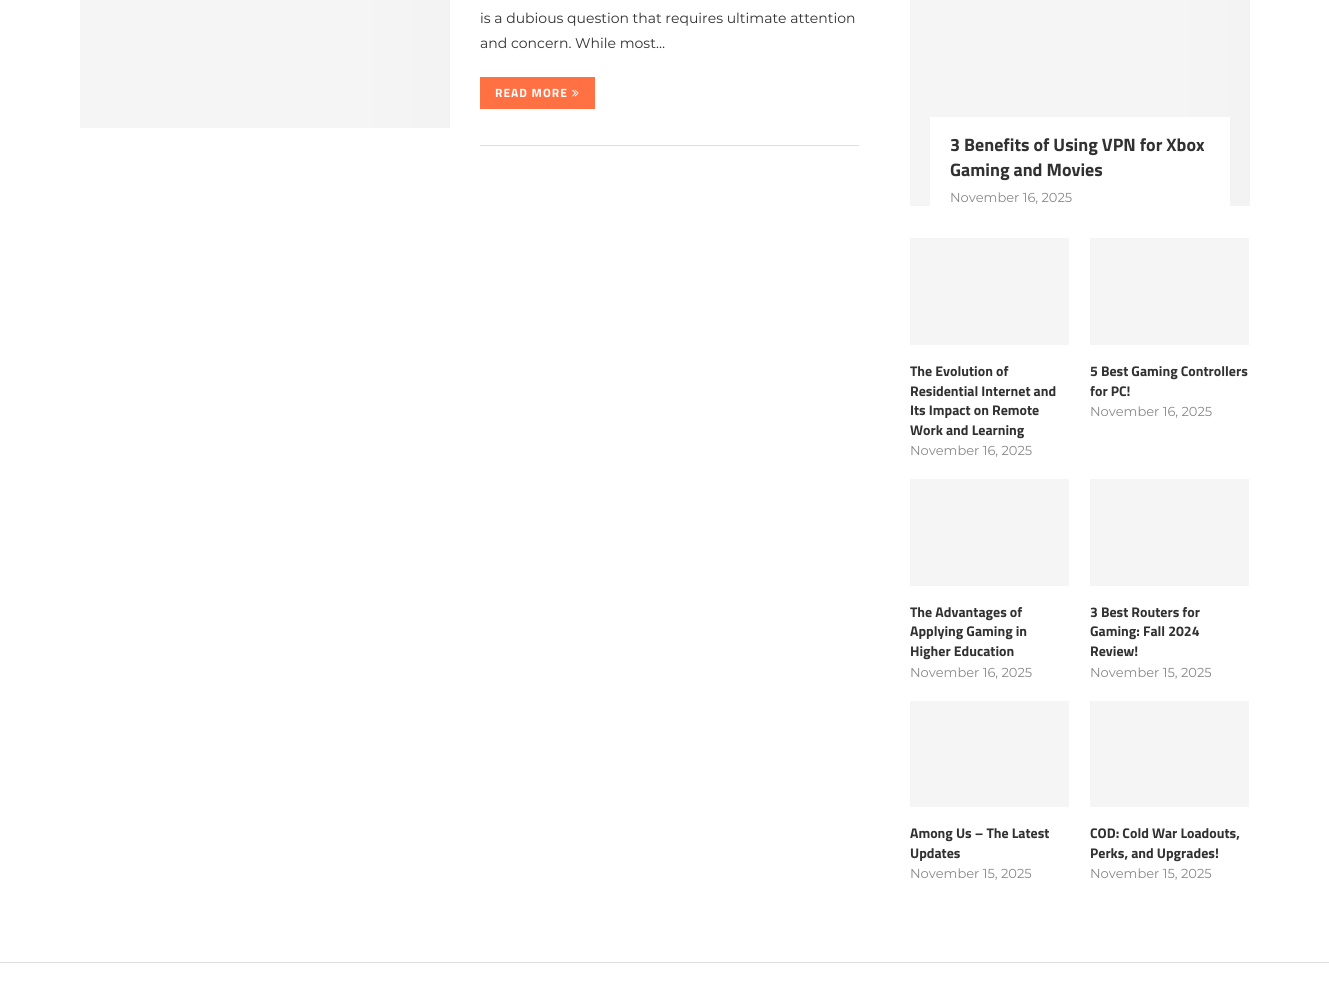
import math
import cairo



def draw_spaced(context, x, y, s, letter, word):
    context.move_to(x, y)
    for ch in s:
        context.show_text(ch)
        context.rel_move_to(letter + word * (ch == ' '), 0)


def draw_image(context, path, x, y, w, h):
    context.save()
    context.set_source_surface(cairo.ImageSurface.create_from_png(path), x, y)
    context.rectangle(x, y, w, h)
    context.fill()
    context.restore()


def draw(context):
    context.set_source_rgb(1, 1, 1)
    context.paint()
    gradient = cairo.LinearGradient(715, 4.5, -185, 4.5)
    gradient.add_color_stop_rgba(0, 245 / 255, 245 / 255, 245 / 255, 1)
    gradient.add_color_stop_rgba(0.15, 239 / 255, 239 / 255, 239 / 255, 1)
    gradient.add_color_stop_rgba(0.4, 245 / 255, 245 / 255, 245 / 255, 1)
    gradient.add_color_stop_rgba(1, 245 / 255, 245 / 255, 245 / 255, 1)
    context.set_source(gradient)
    context.rectangle(80, 0, 370, 128)
    context.fill()
    context.set_source_rgb(1, 112 / 255, 67 / 255)
    context.rectangle(480, 77, 115, 32)
    context.fill()
    draw_image(context, "images/1.png", 572, 89, 7, 8)
    context.set_source_rgb(222 / 255, 222 / 255, 222 / 255)
    context.rectangle(480, 145, 379, 1)
    context.fill()
    gradient = cairo.LinearGradient(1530, 93, 630, 93)
    gradient.add_color_stop_rgba(0, 245 / 255, 245 / 255, 245 / 255, 1)
    gradient.add_color_stop_rgba(0.15, 239 / 255, 239 / 255, 239 / 255, 1)
    gradient.add_color_stop_rgba(0.4, 245 / 255, 245 / 255, 245 / 255, 1)
    gradient.add_color_stop_rgba(1, 245 / 255, 245 / 255, 245 / 255, 1)
    context.set_source(gradient)
    context.rectangle(910, 0, 340, 206)
    context.fill()
    context.set_source_rgb(1, 1, 1)
    context.rectangle(930, 117, 300, 89)
    context.fill()
    context.set_source_rgb(245 / 255, 245 / 255, 245 / 255)
    context.rectangle(910, 238, 159, 107)
    context.fill()
    context.rectangle(1090, 238, 159, 107)
    context.fill()
    context.rectangle(910, 479, 159, 107)
    context.fill()
    context.rectangle(1090, 479, 159, 107)
    context.fill()
    context.rectangle(910, 701, 159, 106)
    context.fill()
    context.rectangle(1090, 701, 159, 106)
    context.fill()
    context.set_source_rgb(222 / 255, 222 / 255, 222 / 255)
    context.rectangle(0, 962, 1329, 1)
    context.fill()
    context.select_font_face("Montserrat")
    context.set_font_size(14)
    context.set_source_rgb(49 / 255, 49 / 255, 49 / 255)
    context.move_to(480, 23)
    context.show_text("is a dubious question that requires ultimate attention")
    context.move_to(480, 48)
    context.show_text("and concern. While most…")
    context.select_font_face("Titillium Web", cairo.FontSlant.NORMAL, cairo.FontWeight.BOLD)
    context.set_font_size(12)
    context.set_source_rgb(1, 1, 1)
    draw_spaced(context, 495, 97, "READ MORE", 1, 0)
    context.set_font_size(18)
    context.set_source_rgb(49 / 255, 49 / 255, 49 / 255)
    context.move_to(950, 151)
    context.show_text("3 Benefits of Using VPN for Xbox")
    context.move_to(950, 176)
    context.show_text("Gaming and Movies")
    context.select_font_face("Montserrat")
    context.set_font_size(13)
    context.set_source_rgb(136 / 255, 136 / 255, 136 / 255)
    context.move_to(950, 202)
    context.show_text("November 16, 2025")
    context.save()
    context.rectangle(910, 361, 159, 98)
    context.clip()
    context.select_font_face("Titillium Web", cairo.FontSlant.NORMAL, cairo.FontWeight.BOLD)
    context.set_font_size(14)
    context.set_source_rgb(49 / 255, 49 / 255, 49 / 255)
    context.move_to(910, 376)
    context.show_text("The Evolution of")
    context.restore()
    context.select_font_face("Titillium Web", cairo.FontSlant.NORMAL, cairo.FontWeight.BOLD)
    context.set_font_size(14)
    context.set_source_rgb(49 / 255, 49 / 255, 49 / 255)
    context.move_to(910, 396)
    context.show_text("Residential Internet and")
    context.move_to(910, 415)
    context.show_text("Its Impact on Remote")
    context.move_to(910, 435)
    context.show_text("Work and Learning")
    context.select_font_face("Montserrat")
    context.set_font_size(13)
    context.set_source_rgb(136 / 255, 136 / 255, 136 / 255)
    context.move_to(910, 455)
    context.show_text("November 16, 2025")
    context.select_font_face("Titillium Web", cairo.FontSlant.NORMAL, cairo.FontWeight.BOLD)
    context.set_font_size(14)
    context.set_source_rgb(49 / 255, 49 / 255, 49 / 255)
    context.move_to(1090, 376)
    context.show_text("5 Best Gaming Controllers")
    context.move_to(1090, 396)
    context.show_text("for PC!")
    context.select_font_face("Montserrat")
    context.set_font_size(13)
    context.set_source_rgb(136 / 255, 136 / 255, 136 / 255)
    context.move_to(1090, 416)
    context.show_text("November 16, 2025")
    context.save()
    context.rectangle(910, 602, 159, 79)
    context.clip()
    context.select_font_face("Titillium Web", cairo.FontSlant.NORMAL, cairo.FontWeight.BOLD)
    context.set_font_size(14)
    context.set_source_rgb(49 / 255, 49 / 255, 49 / 255)
    context.move_to(910, 617)
    context.show_text("The Advantages of")
    context.restore()
    context.select_font_face("Titillium Web", cairo.FontSlant.NORMAL, cairo.FontWeight.BOLD)
    context.set_font_size(14)
    context.set_source_rgb(49 / 255, 49 / 255, 49 / 255)
    context.move_to(910, 636)
    context.show_text("Applying Gaming in")
    context.move_to(910, 656)
    context.show_text("Higher Education")
    context.select_font_face("Montserrat")
    context.set_font_size(13)
    context.set_source_rgb(136 / 255, 136 / 255, 136 / 255)
    context.move_to(910, 677)
    context.show_text("November 16, 2025")
    context.select_font_face("Titillium Web", cairo.FontSlant.NORMAL, cairo.FontWeight.BOLD)
    context.set_font_size(14)
    context.set_source_rgb(49 / 255, 49 / 255, 49 / 255)
    context.move_to(1090, 617)
    context.show_text("3 Best Routers for")
    context.move_to(1090, 636)
    context.show_text("Gaming: Fall 2024")
    context.move_to(1090, 656)
    context.show_text("Review!")
    context.select_font_face("Montserrat")
    context.set_font_size(13)
    context.set_source_rgb(136 / 255, 136 / 255, 136 / 255)
    context.move_to(1090, 677)
    context.show_text("November 15, 2025")
    context.select_font_face("Titillium Web", cairo.FontSlant.NORMAL, cairo.FontWeight.BOLD)
    context.set_font_size(14)
    context.set_source_rgb(49 / 255, 49 / 255, 49 / 255)
    context.move_to(910, 838)
    context.show_text("Among Us – The Latest")
    context.move_to(910, 858)
    context.show_text("Updates")
    context.select_font_face("Montserrat")
    context.set_font_size(13)
    context.set_source_rgb(136 / 255, 136 / 255, 136 / 255)
    context.move_to(910, 878)
    context.show_text("November 15, 2025")
    context.select_font_face("Titillium Web", cairo.FontSlant.NORMAL, cairo.FontWeight.BOLD)
    context.set_font_size(14)
    context.set_source_rgb(49 / 255, 49 / 255, 49 / 255)
    context.move_to(1090, 838)
    context.show_text("COD: Cold War Loadouts,")
    context.move_to(1090, 858)
    context.show_text("Perks, and Upgrades!")
    context.select_font_face("Montserrat")
    context.set_font_size(13)
    context.set_source_rgb(136 / 255, 136 / 255, 136 / 255)
    context.move_to(1090, 878)
    context.show_text("November 15, 2025")


surface = cairo.ImageSurface(cairo.Format.RGB24, 1329, 983)
context = cairo.Context(surface)
options = cairo.FontOptions()
options.set_hint_metrics(cairo.HintMetrics.OFF)
options.set_hint_style(cairo.HintStyle.NONE)
context.set_font_options(options)
context.set_miter_limit(4)
draw(context)
surface.write_to_png("out.png")
